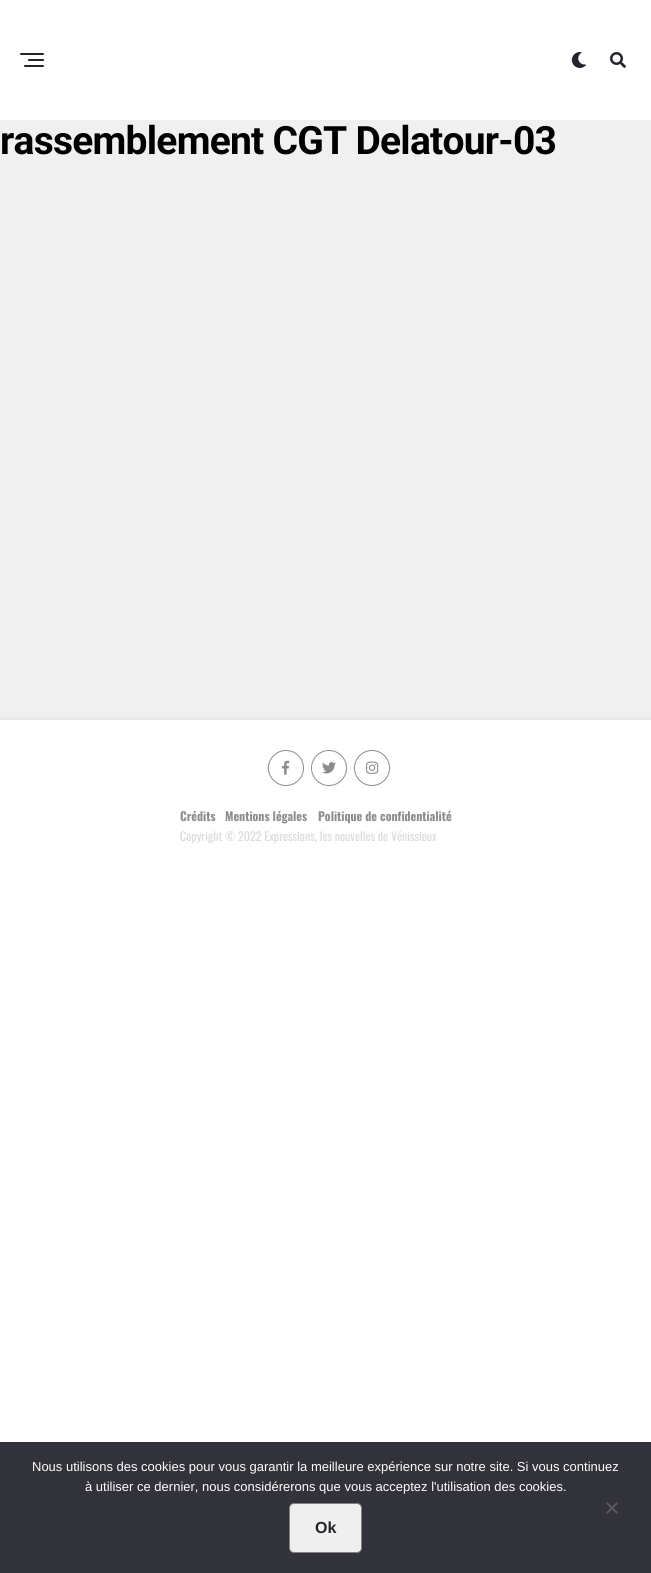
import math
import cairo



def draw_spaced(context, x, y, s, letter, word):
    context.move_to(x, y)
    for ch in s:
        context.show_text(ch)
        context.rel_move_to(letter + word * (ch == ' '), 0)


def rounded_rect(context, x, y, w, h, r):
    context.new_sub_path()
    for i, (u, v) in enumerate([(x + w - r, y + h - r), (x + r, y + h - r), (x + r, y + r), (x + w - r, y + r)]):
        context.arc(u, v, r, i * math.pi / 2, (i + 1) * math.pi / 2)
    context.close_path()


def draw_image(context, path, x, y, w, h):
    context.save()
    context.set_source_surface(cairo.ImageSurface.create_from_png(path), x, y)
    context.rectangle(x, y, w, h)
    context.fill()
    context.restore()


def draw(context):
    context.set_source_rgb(1, 1, 1)
    context.paint()
    context.set_source_rgb(33 / 255, 37 / 255, 41 / 255)
    rounded_rect(context, 20, 53, 24, 2, 1)
    context.fill()
    rounded_rect(context, 28, 59, 16, 2, 1)
    context.fill()
    rounded_rect(context, 24, 65, 20, 2, 1)
    context.fill()
    draw_image(context, "images/1.png", 571, 52, 16, 16)
    draw_image(context, "images/2.png", 610, 52, 16, 16)
    context.set_source_rgb(240 / 255, 240 / 255, 240 / 255)
    context.rectangle(0, 120, 651, 597)
    context.fill()
    context.set_source_rgb(233 / 255, 233 / 255, 233 / 255)
    context.rectangle(0, 717, 651, 3)
    context.fill()
    context.arc(286, 768, 17.5, 0, 2 * math.pi)
    context.set_source_rgb(141 / 255, 141 / 255, 141 / 255)
    context.set_line_width(1)
    context.stroke()
    draw_image(context, "images/3.png", 282, 760, 8, 15)
    context.arc(329, 768, 17.5, 0, 2 * math.pi)
    context.stroke()
    draw_image(context, "images/4.png", 322, 762, 14, 12)
    context.arc(372, 768, 17.5, 0, 2 * math.pi)
    context.stroke()
    draw_image(context, "images/5.png", 366, 761, 13, 13)
    context.set_source_rgb(50 / 255, 50 / 255, 58 / 255)
    context.rectangle(0, 1442, 651, 131)
    context.fill()
    context.set_source_rgb(89 / 255, 89 / 255, 93 / 255)
    context.new_path()
    context.move_to(616.5, 1502)
    context.line_to(618, 1503.5)
    context.line_to(607.5, 1514)
    context.line_to(606, 1512.5)
    context.close_path()
    context.fill()
    context.new_path()
    context.move_to(606, 1503.5)
    context.line_to(607.5, 1502)
    context.line_to(618, 1512.5)
    context.line_to(616.5, 1514)
    context.close_path()
    context.fill()
    context.set_source_rgb(239 / 255, 239 / 255, 239 / 255)
    rounded_rect(context, 289.5, 1503.5, 72, 49, 4.5)
    context.fill_preserve()
    context.set_source_rgb(128 / 255, 128 / 255, 128 / 255)
    context.stroke()
    context.select_font_face("Roboto", cairo.FontSlant.NORMAL, cairo.FontWeight.BOLD)
    context.set_font_size(39)
    context.set_source_rgb(0, 0, 0)
    draw_spaced(context, 0, 154, "rassemblement CGT Delatour-03", -0.75, 0)
    context.select_font_face("Oswald", cairo.FontSlant.NORMAL, cairo.FontWeight.BOLD)
    context.set_font_size(12)
    context.set_source_rgb(141 / 255, 141 / 255, 141 / 255)
    context.move_to(180, 821)
    context.show_text("Crédits")
    context.move_to(225, 821)
    context.show_text("Mentions légales")
    context.move_to(318, 821)
    context.show_text("Politique de confidentialité")
    context.select_font_face("Oswald")
    context.set_source_rgb(219 / 255, 219 / 255, 219 / 255)
    context.move_to(180, 841)
    context.show_text("Copyright © 2022 Expressions, les nouvelles de Vénissieux")
    context.select_font_face("Liberation Sans")
    context.set_font_size(13)
    context.set_source_rgb(1, 1, 1)
    context.move_to(32, 1471)
    context.show_text("Nous utilisons des cookies pour vous garantir la meilleure expérience sur notre site. Si vous continuez")
    context.move_to(85, 1491)
    context.show_text("à utiliser ce dernier, nous considérerons que vous acceptez l'utilisation des cookies.")
    context.select_font_face("Liberation Sans", cairo.FontSlant.NORMAL, cairo.FontWeight.BOLD)
    context.set_font_size(16)
    context.set_source_rgb(33 / 255, 37 / 255, 41 / 255)
    context.move_to(315, 1533)
    context.show_text("Ok")


surface = cairo.ImageSurface(cairo.Format.RGB24, 651, 1573)
context = cairo.Context(surface)
options = cairo.FontOptions()
options.set_hint_metrics(cairo.HintMetrics.OFF)
options.set_hint_style(cairo.HintStyle.NONE)
context.set_font_options(options)
context.set_miter_limit(4)
draw(context)
surface.write_to_png("out.png")
